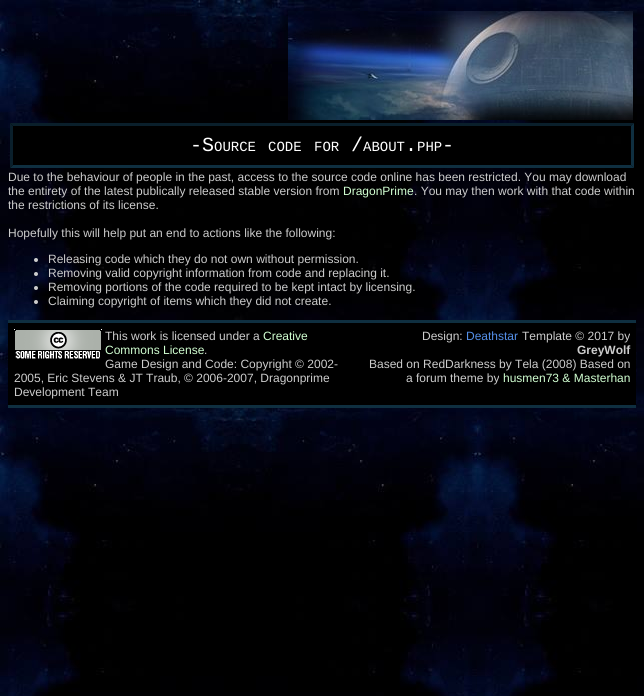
import math
import cairo



def draw_image(context, path, x, y, w, h):
    context.save()
    context.set_source_surface(cairo.ImageSurface.create_from_png(path), x, y)
    context.rectangle(x, y, w, h)
    context.fill()
    context.restore()


def draw(context):
    context.set_source_rgb(1, 1, 1)
    context.paint()
    draw_image(context, "images/1.png", 0, 0, 644, 696)
    draw_image(context, "images/2.png", 288, 11, 345, 109)
    context.set_source_rgb(0, 0, 0)
    context.rectangle(10, 123, 579, 45)
    context.fill()
    context.set_source_rgb(10 / 255, 31 / 255, 43 / 255)
    context.new_path()
    context.move_to(10, 123)
    context.line_to(634, 123)
    context.line_to(631, 126)
    context.line_to(13, 126)
    context.close_path()
    context.fill()
    context.set_source_rgb(15 / 255, 47 / 255, 64 / 255)
    context.new_path()
    context.move_to(634, 123)
    context.line_to(634, 168)
    context.line_to(631, 165)
    context.line_to(631, 126)
    context.close_path()
    context.fill()
    context.new_path()
    context.move_to(634, 168)
    context.line_to(10, 168)
    context.line_to(13, 165)
    context.line_to(631, 165)
    context.close_path()
    context.fill()
    context.set_source_rgb(10 / 255, 31 / 255, 43 / 255)
    context.new_path()
    context.move_to(10, 168)
    context.line_to(10, 123)
    context.line_to(13, 126)
    context.line_to(13, 165)
    context.close_path()
    context.fill()
    context.set_source_rgb(204 / 255, 204 / 255, 204 / 255)
    context.arc(36, 260, 2, 0, 2 * math.pi)
    context.fill()
    context.arc(36, 274, 2, 0, 2 * math.pi)
    context.fill()
    context.arc(36, 288, 2, 0, 2 * math.pi)
    context.fill()
    context.arc(36, 302, 2, 0, 2 * math.pi)
    context.fill()
    context.set_source_rgb(0, 0, 0)
    context.rectangle(8, 323, 628, 82)
    context.fill()
    context.set_source_rgb(15 / 255, 47 / 255, 64 / 255)
    context.rectangle(8, 320, 628, 3)
    context.fill()
    context.rectangle(8, 405, 628, 3)
    context.fill()
    draw_image(context, "images/3.png", 14, 329, 88, 30)
    context.select_font_face("Liberation Mono")
    context.set_font_size(20)
    context.set_source_rgb(1, 1, 1)
    context.move_to(190, 151)
    context.show_text("-S")
    context.set_font_size(14)
    context.move_to(214, 151)
    context.show_text("OURCE")
    context.move_to(268, 151)
    context.show_text("CODE")
    context.move_to(314, 151)
    context.show_text("FOR")
    context.set_font_size(20)
    context.move_to(351, 151)
    context.show_text("/")
    context.set_font_size(14)
    context.move_to(363, 151)
    context.show_text("ABOUT")
    context.move_to(417, 151)
    context.show_text("PHP")
    context.set_font_size(20)
    context.move_to(442, 151)
    context.show_text("-")
    context.move_to(405, 151)
    context.show_text(".")
    context.select_font_face("Liberation Sans")
    context.set_font_size(12)
    context.set_source_rgb(204 / 255, 204 / 255, 204 / 255)
    context.move_to(8, 181)
    context.show_text("Due to the behaviour of people in the past, access to the source code online has been restricted. You may download")
    context.move_to(8, 195)
    context.show_text("the entirety of the latest publically released stable version from")
    context.set_source_rgb(209 / 255, 1, 209 / 255)
    context.move_to(343, 195)
    context.show_text("DragonPrime")
    context.set_source_rgb(204 / 255, 204 / 255, 204 / 255)
    context.move_to(414, 195)
    context.show_text(". You may then work with that code within")
    context.move_to(8, 209)
    context.show_text("the restrictions of its license.")
    context.move_to(8, 237)
    context.show_text("Hopefully this will help put an end to actions like the following:")
    context.move_to(48, 263)
    context.show_text("Releasing code which they do not own without permission.")
    context.move_to(48, 277)
    context.show_text("Removing valid copyright information from code and replacing it.")
    context.move_to(48, 291)
    context.show_text("Removing portions of the code required to be kept intact by licensing.")
    context.move_to(48, 305)
    context.show_text("Claiming copyright of items which they did not create.")
    context.move_to(105, 340)
    context.show_text("This work is licensed under a")
    context.set_source_rgb(209 / 255, 1, 209 / 255)
    context.move_to(263, 340)
    context.show_text("Creative")
    context.move_to(105, 354)
    context.show_text("Commons License")
    context.set_source_rgb(204 / 255, 204 / 255, 204 / 255)
    context.move_to(204, 354)
    context.show_text(".")
    context.move_to(105, 368)
    context.show_text("Game Design and Code: Copyright © 2002-")
    context.move_to(14, 382)
    context.show_text("2005, Eric Stevens & JT Traub, © 2006-2007, Dragonprime")
    context.move_to(14, 396)
    context.show_text("Development Team")
    context.move_to(422, 340)
    context.show_text("Design:")
    context.set_source_rgb(84 / 255, 143 / 255, 232 / 255)
    context.move_to(466, 340)
    context.show_text("Deathstar")
    context.set_source_rgb(204 / 255, 204 / 255, 204 / 255)
    context.move_to(522, 340)
    context.show_text("Template © 2017 by")
    context.select_font_face("Liberation Sans", cairo.FontSlant.NORMAL, cairo.FontWeight.BOLD)
    context.move_to(577, 354)
    context.show_text("GreyWolf")
    context.select_font_face("Liberation Sans")
    context.move_to(369, 368)
    context.show_text("Based on RedDarkness by Tela (2008) Based on")
    context.move_to(406, 382)
    context.show_text("a forum theme by")
    context.set_source_rgb(209 / 255, 1, 209 / 255)
    context.move_to(503, 382)
    context.show_text("husmen73 & Masterhan")


surface = cairo.ImageSurface(cairo.Format.RGB24, 644, 696)
context = cairo.Context(surface)
options = cairo.FontOptions()
options.set_hint_metrics(cairo.HintMetrics.OFF)
options.set_hint_style(cairo.HintStyle.NONE)
context.set_font_options(options)
context.set_miter_limit(4)
draw(context)
surface.write_to_png("out.png")
